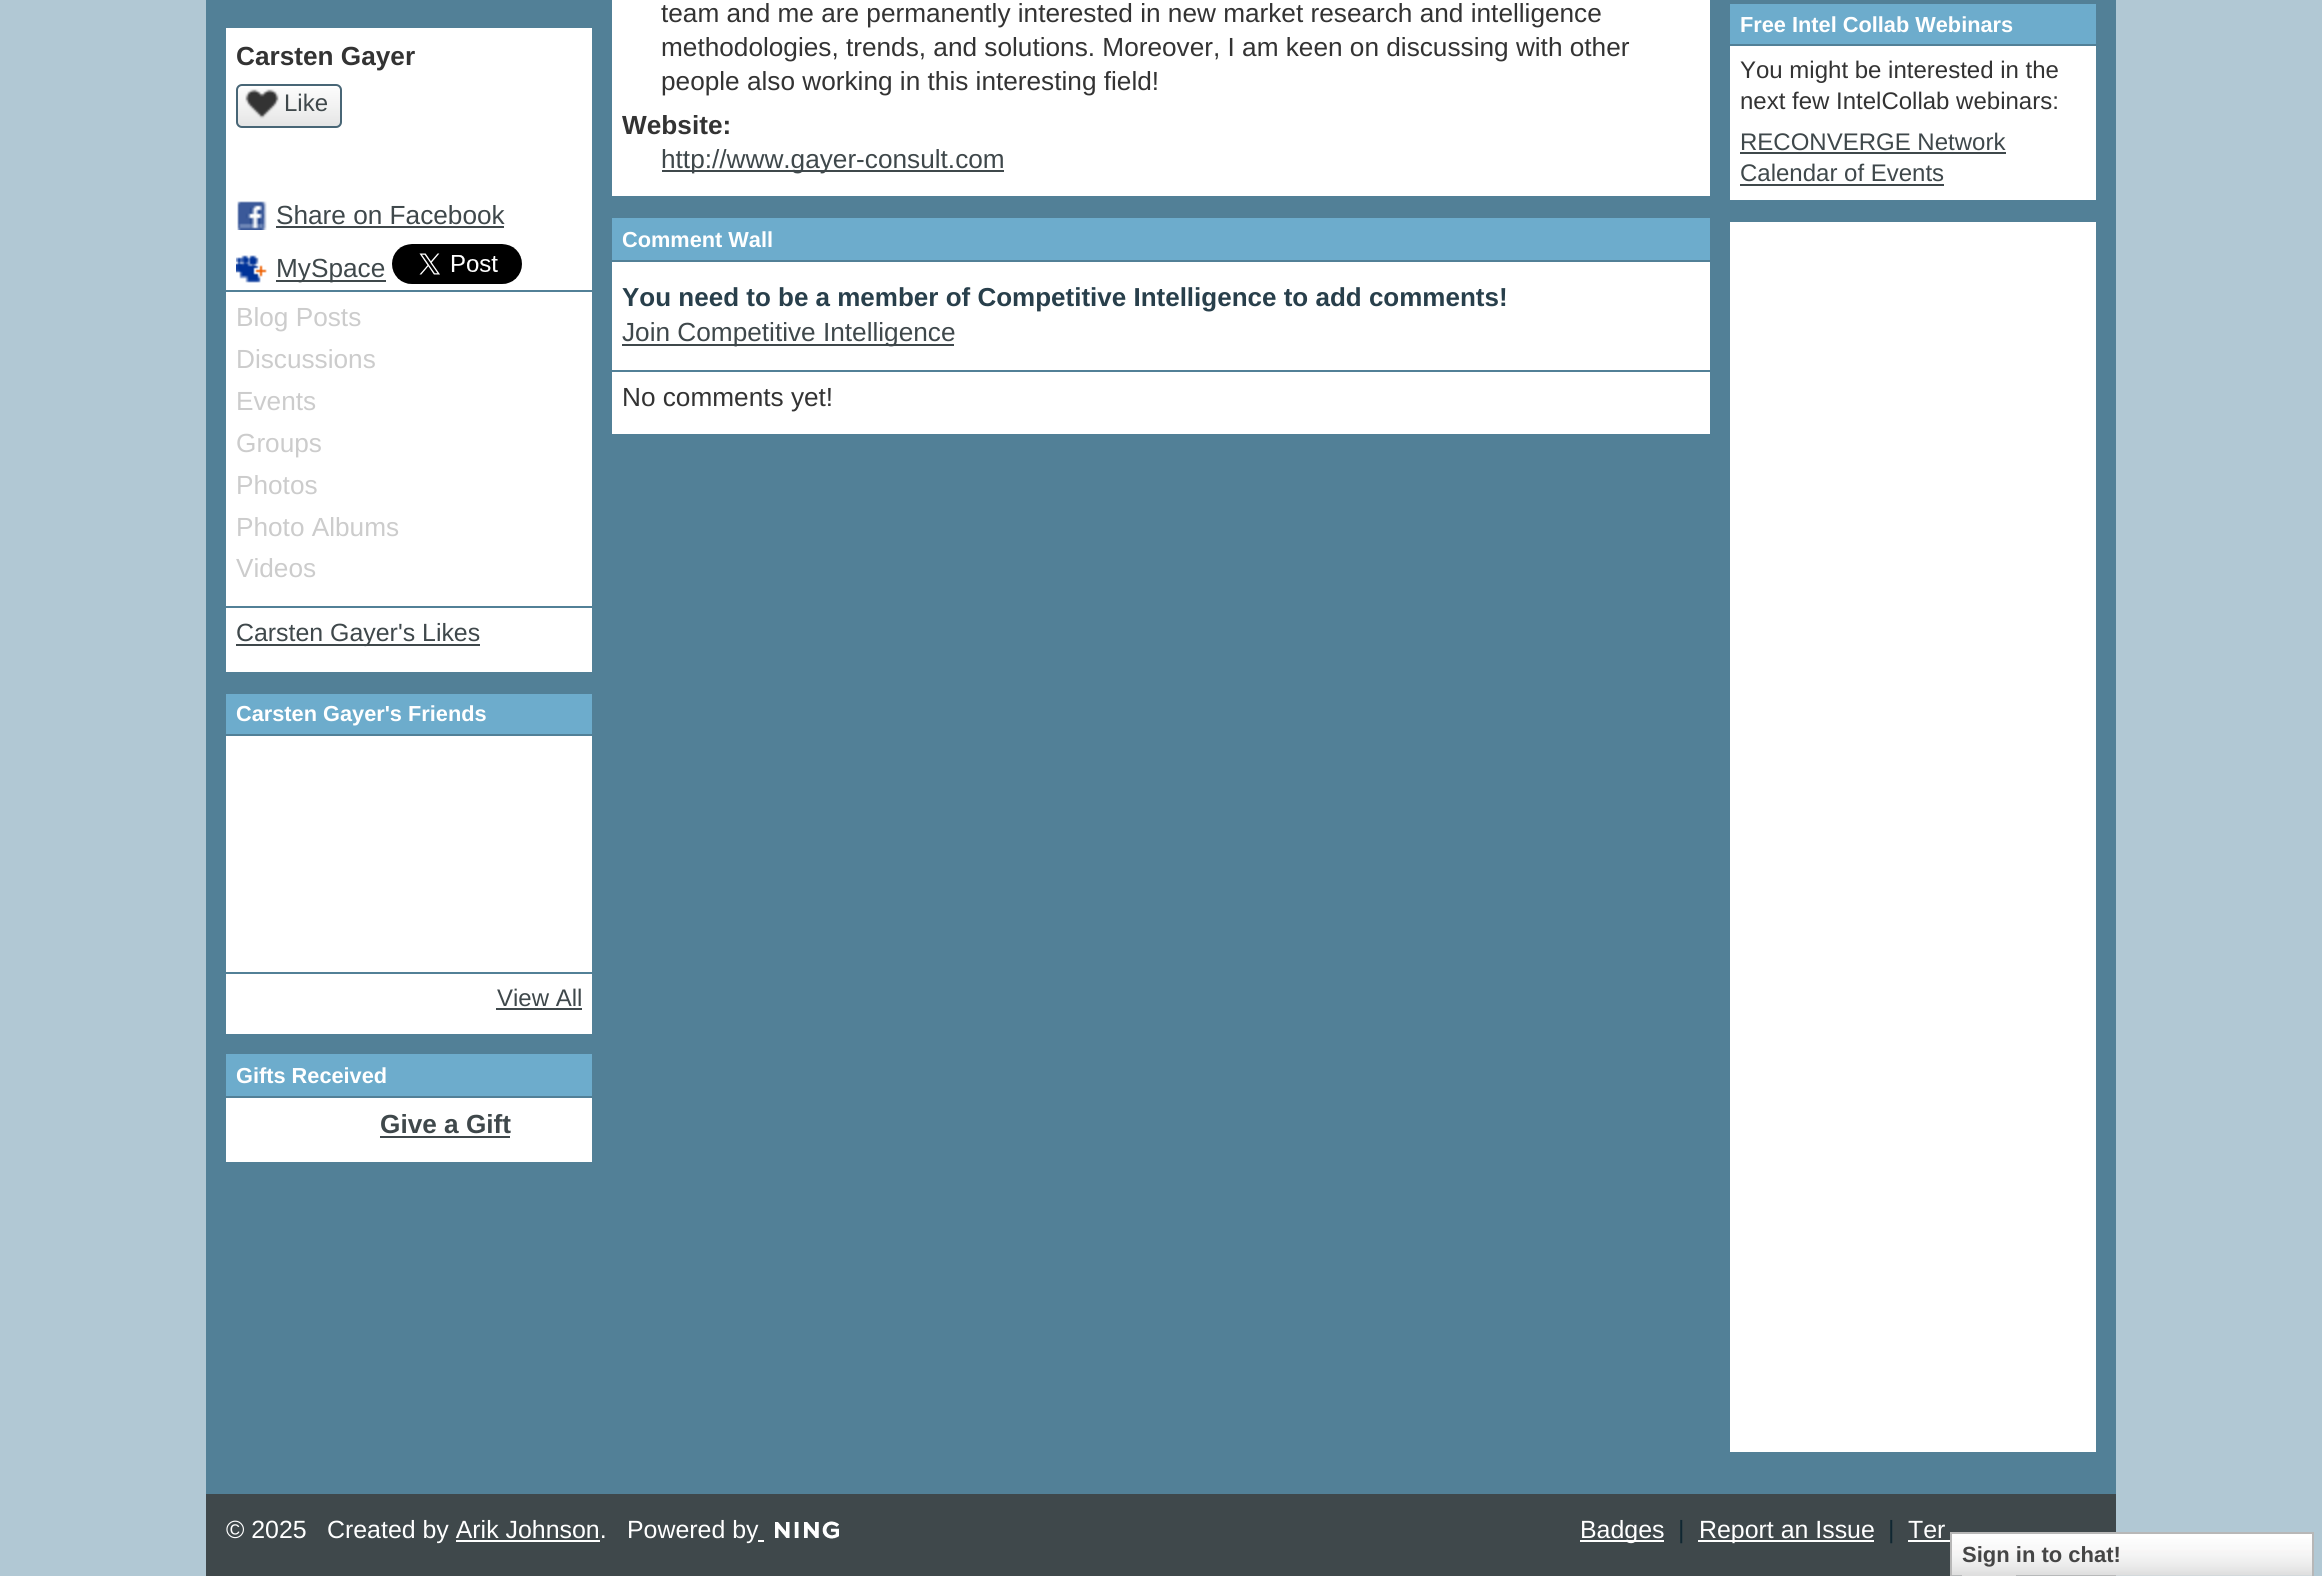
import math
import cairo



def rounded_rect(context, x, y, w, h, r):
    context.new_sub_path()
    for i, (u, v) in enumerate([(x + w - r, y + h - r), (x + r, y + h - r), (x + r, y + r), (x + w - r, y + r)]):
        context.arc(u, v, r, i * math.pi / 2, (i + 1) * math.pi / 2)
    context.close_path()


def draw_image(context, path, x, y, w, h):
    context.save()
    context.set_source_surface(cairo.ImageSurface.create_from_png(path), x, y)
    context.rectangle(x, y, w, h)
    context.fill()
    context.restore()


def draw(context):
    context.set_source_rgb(177 / 255, 200 / 255, 212 / 255)
    context.paint()
    context.set_source_rgb(82 / 255, 128 / 255, 151 / 255)
    context.rectangle(206, 0, 1910, 1494)
    context.fill()
    context.set_source_rgb(1, 1, 1)
    context.rectangle(226, 28, 366, 262)
    context.fill()
    draw_image(context, "images/1.png", 236, 88, 106, 40)
    rounded_rect(context, 237, 85, 104, 42, 5)
    context.set_source_rgb(72 / 255, 102 / 255, 118 / 255)
    context.stroke()
    draw_image(context, "images/2.png", 245, 89, 34, 30)
    draw_image(context, "images/3.png", 237, 201, 30, 29)
    context.set_source_rgb(63 / 255, 72 / 255, 75 / 255)
    context.rectangle(276, 226, 228, 2)
    context.fill()
    draw_image(context, "images/4.png", 236, 255, 31, 28)
    context.rectangle(276, 280, 110, 2)
    context.fill()
    draw_image(context, "images/5.png", 392, 244, 130, 40)
    context.set_source_rgb(1, 1, 1)
    context.rectangle(226, 292, 366, 314)
    context.fill()
    context.rectangle(226, 608, 366, 64)
    context.fill()
    context.set_source_rgb(63 / 255, 72 / 255, 75 / 255)
    context.rectangle(236, 644, 244, 2)
    context.fill()
    context.set_source_rgb(109 / 255, 172 / 255, 204 / 255)
    context.rectangle(226, 694, 366, 40)
    context.fill()
    context.set_source_rgb(1, 1, 1)
    context.rectangle(226, 736, 366, 236)
    context.fill()
    context.rectangle(226, 974, 366, 60)
    context.fill()
    context.set_source_rgb(63 / 255, 72 / 255, 75 / 255)
    context.rectangle(496, 1008, 86, 2)
    context.fill()
    context.set_source_rgb(109 / 255, 172 / 255, 204 / 255)
    context.rectangle(226, 1054, 366, 42)
    context.fill()
    context.set_source_rgb(1, 1, 1)
    context.rectangle(226, 1098, 366, 64)
    context.fill()
    context.set_source_rgb(63 / 255, 72 / 255, 75 / 255)
    context.rectangle(380, 1136, 130, 2)
    context.fill()
    context.set_source_rgb(1, 1, 1)
    context.rectangle(612, 0, 1098, 196)
    context.fill()
    context.set_source_rgb(63 / 255, 72 / 255, 75 / 255)
    context.rectangle(662, 170, 342, 2)
    context.fill()
    context.set_source_rgb(109 / 255, 172 / 255, 204 / 255)
    context.rectangle(612, 218, 1098, 42)
    context.fill()
    context.set_source_rgb(1, 1, 1)
    context.rectangle(612, 262, 1098, 108)
    context.fill()
    context.set_source_rgb(63 / 255, 72 / 255, 75 / 255)
    context.rectangle(622, 344, 332, 2)
    context.fill()
    context.set_source_rgb(1, 1, 1)
    context.rectangle(612, 372, 1098, 62)
    context.fill()
    context.set_source_rgb(109 / 255, 172 / 255, 204 / 255)
    context.rectangle(1730, 4, 366, 40)
    context.fill()
    context.set_source_rgb(1, 1, 1)
    context.rectangle(1730, 46, 366, 154)
    context.fill()
    context.set_source_rgb(63 / 255, 72 / 255, 75 / 255)
    context.rectangle(1740, 152, 266, 2)
    context.fill()
    context.rectangle(1740, 184, 204, 2)
    context.fill()
    context.set_source_rgb(1, 1, 1)
    context.rectangle(1730, 222, 366, 1230)
    context.fill()
    context.set_source_rgb(63 / 255, 72 / 255, 75 / 255)
    context.rectangle(206, 1494, 1910, 82)
    context.fill()
    draw_image(context, "images/6.png", 775, 1521, 64, 18)
    context.set_source_rgb(1, 1, 1)
    context.rectangle(456, 1540, 144, 2)
    context.fill()
    context.rectangle(758, 1540, 6, 2)
    context.fill()
    context.rectangle(1580, 1540, 84, 2)
    context.fill()
    context.rectangle(1698, 1540, 176, 2)
    context.fill()
    context.rectangle(1908, 1540, 42, 2)
    context.fill()
    draw_image(context, "images/7.png", 1952, 1534, 360, 42)
    context.rectangle(1951, 1533, 362, 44)
    context.set_source_rgb(183 / 255, 183 / 255, 183 / 255)
    context.stroke()
    context.set_source_rgb(222 / 255, 222 / 255, 222 / 255)
    context.rectangle(1962, 1575, 54, 1)
    context.fill()
    context.select_font_face("Liberation Sans", cairo.FontSlant.NORMAL, cairo.FontWeight.BOLD)
    context.set_font_size(26.2)
    context.set_source_rgb(51 / 255, 51 / 255, 51 / 255)
    context.move_to(236, 65)
    context.show_text("Carsten Gayer")
    context.select_font_face("Liberation Sans")
    context.set_font_size(24)
    context.set_source_rgb(63 / 255, 72 / 255, 75 / 255)
    context.move_to(284, 111)
    context.show_text("Like")
    context.set_font_size(26.2)
    context.move_to(276, 224)
    context.show_text("Share on Facebook")
    context.move_to(276, 277)
    context.show_text("MySpace")
    context.set_source_rgb(204 / 255, 204 / 255, 204 / 255)
    context.move_to(236, 326)
    context.show_text("Blog Posts")
    context.move_to(236, 368)
    context.show_text("Discussions")
    context.move_to(236, 410)
    context.show_text("Events")
    context.move_to(236, 452)
    context.show_text("Groups")
    context.move_to(236, 494)
    context.show_text("Photos")
    context.move_to(236, 536)
    context.show_text("Photo Albums")
    context.move_to(236, 577)
    context.show_text("Videos")
    context.set_font_size(24.9)
    context.set_source_rgb(63 / 255, 72 / 255, 75 / 255)
    context.move_to(236, 641)
    context.show_text("Carsten Gayer's Likes")
    context.save()
    context.rectangle(236, 700, 250, 28)
    context.clip()
    context.select_font_face("Liberation Sans", cairo.FontSlant.NORMAL, cairo.FontWeight.BOLD)
    context.set_font_size(21.75)
    context.set_source_rgb(1, 1, 1)
    context.move_to(236, 721)
    context.show_text("Carsten Gayer's Friends")
    context.restore()
    context.set_font_size(24)
    context.move_to(497, 1006)
    context.show_text("View All")
    context.select_font_face("Liberation Sans", cairo.FontSlant.NORMAL, cairo.FontWeight.BOLD)
    context.set_font_size(21.75)
    context.set_source_rgb(1, 1, 1)
    context.move_to(236, 1083)
    context.show_text("Gifts Received")
    context.set_font_size(26.2)
    context.set_source_rgb(63 / 255, 72 / 255, 75 / 255)
    context.move_to(380, 1133)
    context.show_text("Give a Gift")
    context.select_font_face("Liberation Sans")
    context.set_source_rgb(51 / 255, 51 / 255, 51 / 255)
    context.move_to(661, 22)
    context.show_text("team and me are permanently interested in new market research and intelligence")
    context.move_to(661, 56)
    context.show_text("methodologies, trends, and solutions. Moreover, I am keen on discussing with other")
    context.move_to(661, 90)
    context.show_text("people also working in this interesting field!")
    context.select_font_face("Liberation Sans", cairo.FontSlant.NORMAL, cairo.FontWeight.BOLD)
    context.move_to(622, 134)
    context.show_text("Website:")
    context.select_font_face("Liberation Sans")
    context.set_source_rgb(63 / 255, 72 / 255, 75 / 255)
    context.move_to(661, 168)
    context.show_text("http://www.gayer-consult.com")
    context.select_font_face("Liberation Sans", cairo.FontSlant.NORMAL, cairo.FontWeight.BOLD)
    context.set_font_size(21.75)
    context.set_source_rgb(1, 1, 1)
    context.move_to(622, 247)
    context.show_text("Comment Wall")
    context.set_font_size(26)
    context.set_source_rgb(40 / 255, 63 / 255, 75 / 255)
    context.move_to(622, 306)
    context.show_text("You need to be a member of Competitive Intelligence to add comments!")
    context.select_font_face("Liberation Sans")
    context.set_font_size(26.2)
    context.set_source_rgb(63 / 255, 72 / 255, 75 / 255)
    context.move_to(622, 341)
    context.show_text("Join Competitive Intelligence")
    context.set_source_rgb(51 / 255, 51 / 255, 51 / 255)
    context.move_to(622, 406)
    context.show_text("No comments yet!")
    context.select_font_face("Liberation Sans", cairo.FontSlant.NORMAL, cairo.FontWeight.BOLD)
    context.set_font_size(21.75)
    context.set_source_rgb(1, 1, 1)
    context.move_to(1740, 32)
    context.show_text("Free Intel Collab Webinars")
    context.select_font_face("Liberation Sans")
    context.set_font_size(24)
    context.set_source_rgb(51 / 255, 51 / 255, 51 / 255)
    context.move_to(1740, 78)
    context.show_text("You might be interested in the")
    context.move_to(1740, 109)
    context.show_text("next few IntelCollab webinars:")
    context.set_source_rgb(63 / 255, 72 / 255, 75 / 255)
    context.move_to(1740, 150)
    context.show_text("RECONVERGE Network")
    context.move_to(1740, 181)
    context.show_text("Calendar of Events")
    context.set_font_size(24.9)
    context.set_source_rgb(1, 1, 1)
    context.move_to(226, 1538)
    context.show_text("© 2025")
    context.move_to(327, 1538)
    context.show_text("Created by Arik Johnson.")
    context.move_to(627, 1538)
    context.show_text("Powered by")
    context.move_to(1580, 1538)
    context.show_text("Badges")
    context.set_source_rgb(16 / 255, 39 / 255, 50 / 255)
    context.move_to(1678, 1538)
    context.show_text("|")
    context.set_source_rgb(1, 1, 1)
    context.move_to(1699, 1538)
    context.show_text("Report an Issue")
    context.set_source_rgb(16 / 255, 39 / 255, 50 / 255)
    context.move_to(1888, 1538)
    context.show_text("|")
    context.set_source_rgb(1, 1, 1)
    context.move_to(1908, 1538)
    context.show_text("Ter")
    context.select_font_face("Liberation Sans", cairo.FontSlant.NORMAL, cairo.FontWeight.BOLD)
    context.set_font_size(22)
    context.set_source_rgb(69 / 255, 69 / 255, 69 / 255)
    context.move_to(1962, 1562)
    context.show_text("Sign in to chat!")


surface = cairo.ImageSurface(cairo.Format.RGB24, 2322, 1576)
context = cairo.Context(surface)
options = cairo.FontOptions()
options.set_hint_metrics(cairo.HintMetrics.OFF)
options.set_hint_style(cairo.HintStyle.NONE)
context.set_font_options(options)
context.set_miter_limit(4)
draw(context)
surface.write_to_png("out.png")
